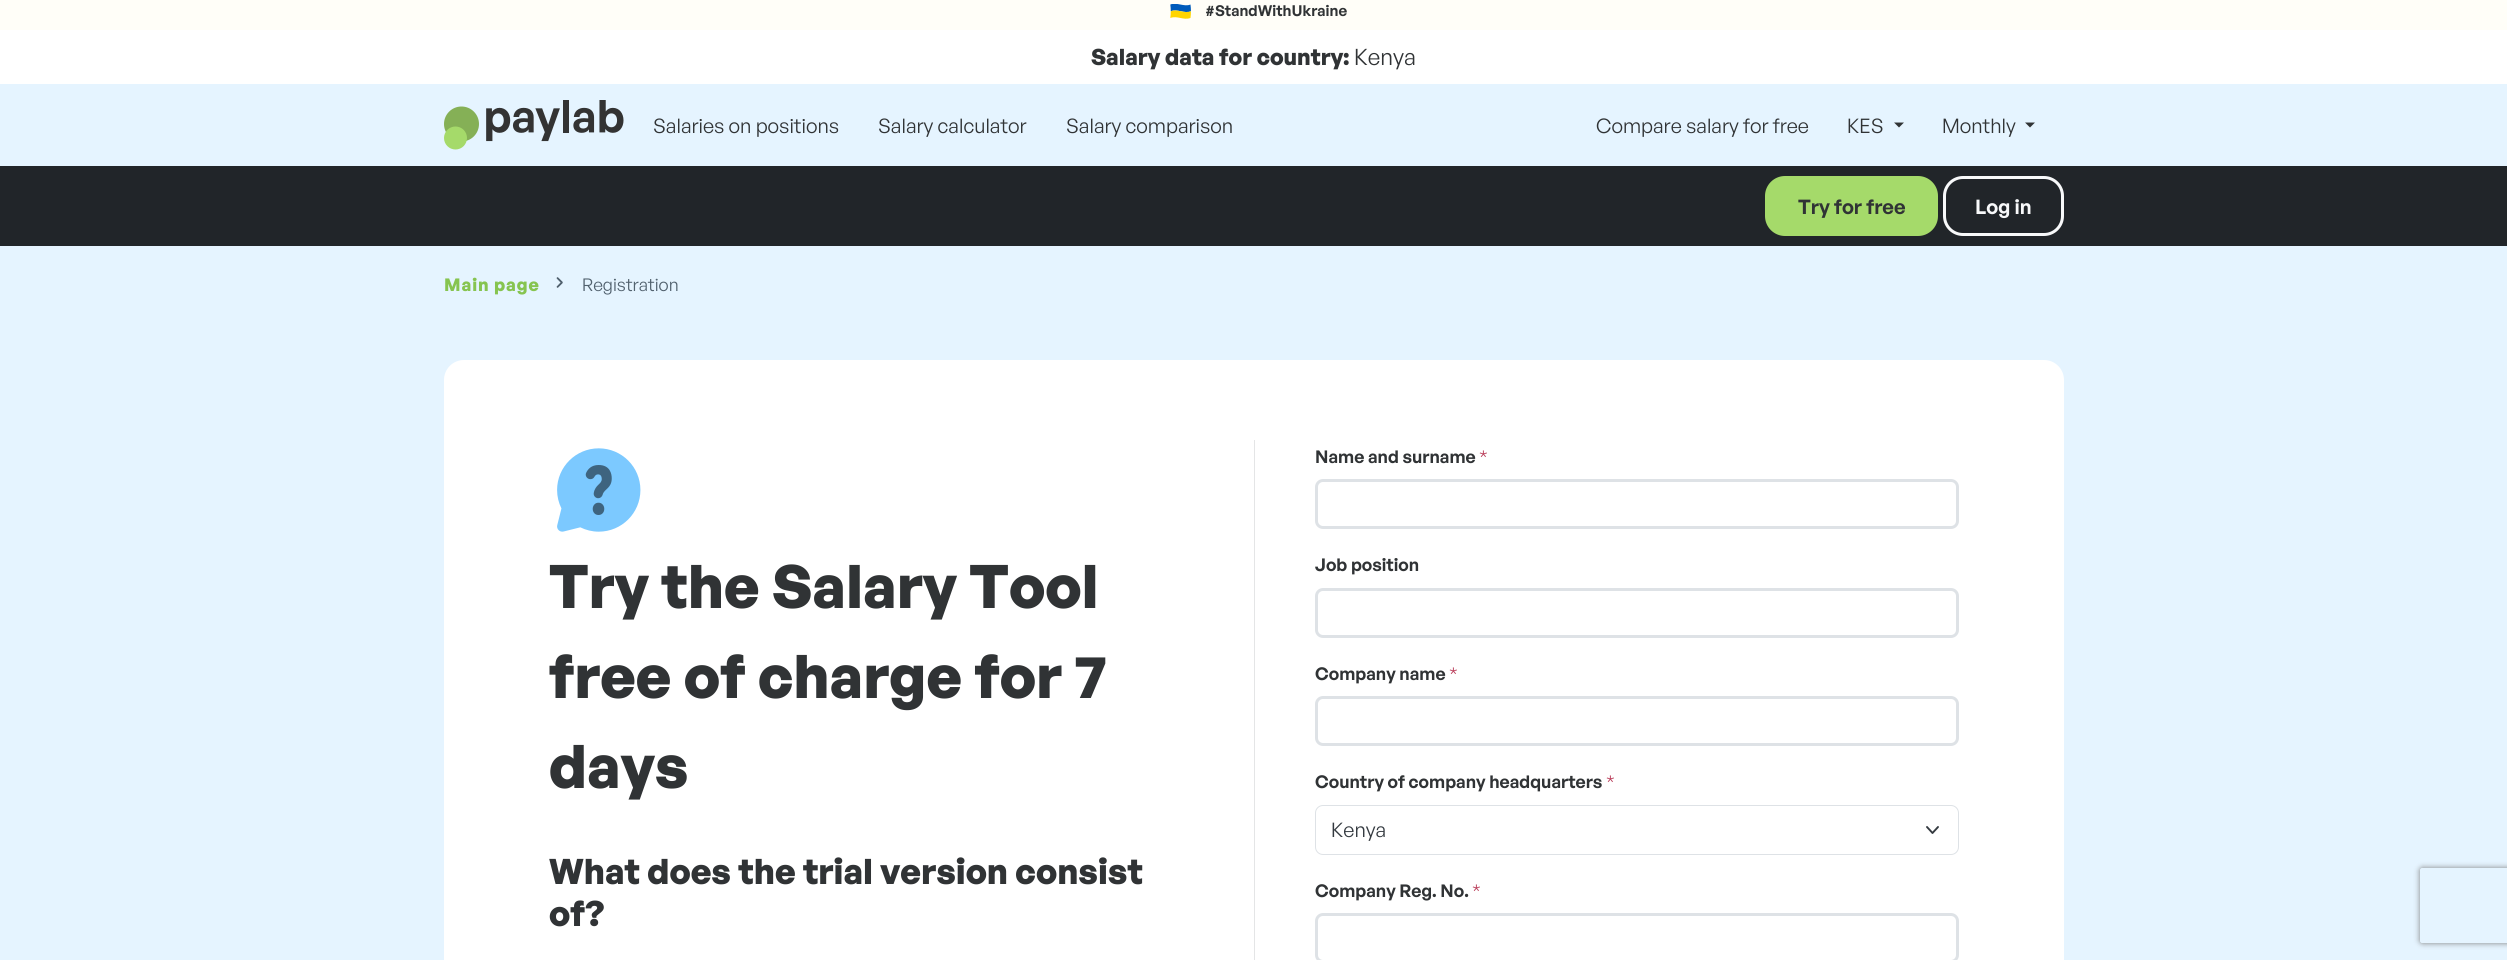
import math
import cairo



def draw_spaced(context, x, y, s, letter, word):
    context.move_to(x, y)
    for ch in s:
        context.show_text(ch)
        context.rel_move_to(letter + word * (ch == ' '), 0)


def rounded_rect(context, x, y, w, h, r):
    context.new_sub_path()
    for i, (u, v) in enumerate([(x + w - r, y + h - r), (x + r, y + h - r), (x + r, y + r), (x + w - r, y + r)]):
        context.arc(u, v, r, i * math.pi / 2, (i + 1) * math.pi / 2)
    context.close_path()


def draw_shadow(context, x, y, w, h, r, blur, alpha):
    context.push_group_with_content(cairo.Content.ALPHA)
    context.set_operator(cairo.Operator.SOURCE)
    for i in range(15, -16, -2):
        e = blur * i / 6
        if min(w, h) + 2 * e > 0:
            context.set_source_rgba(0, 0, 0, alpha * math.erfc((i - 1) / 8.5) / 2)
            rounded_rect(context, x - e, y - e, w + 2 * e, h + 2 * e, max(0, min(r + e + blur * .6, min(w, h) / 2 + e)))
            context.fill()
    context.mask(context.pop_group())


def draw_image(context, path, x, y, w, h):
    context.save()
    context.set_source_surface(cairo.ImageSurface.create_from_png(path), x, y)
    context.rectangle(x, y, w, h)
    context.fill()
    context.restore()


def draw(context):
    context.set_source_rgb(229 / 255, 244 / 255, 1)
    context.paint()
    context.set_source_rgb(1, 254 / 255, 248 / 255)
    context.rectangle(0, 0, 2507, 30)
    context.fill()
    draw_image(context, "images/1.png", 1170, 4, 21, 15)
    context.set_source_rgb(1, 1, 1)
    context.rectangle(0, 30, 2507, 54)
    context.fill()
    draw_image(context, "images/2.png", 444, 100, 180, 50)
    context.set_source_rgb(48 / 255, 51 / 255, 53 / 255)
    context.new_path()
    context.move_to(1894, 122.5)
    context.line_to(1904, 122.5)
    context.line_to(1899, 127.5)
    context.close_path()
    context.fill()
    context.new_path()
    context.move_to(2025, 122.5)
    context.line_to(2035, 122.5)
    context.line_to(2030, 127.5)
    context.close_path()
    context.fill()
    context.set_source_rgb(33 / 255, 37 / 255, 41 / 255)
    context.rectangle(0, 166, 2507, 80)
    context.fill()
    context.set_source_rgb(165 / 255, 218 / 255, 106 / 255)
    rounded_rect(context, 1766.5, 177.5, 170, 57, 18.5)
    context.fill_preserve()
    context.set_line_width(3)
    context.stroke()
    rounded_rect(context, 1944.5, 177.5, 118, 57, 18.5)
    context.set_source_rgb(248 / 255, 249 / 255, 250 / 255)
    context.stroke()
    draw_image(context, "images/3.png", 556, 277, 7, 11)
    context.set_source_rgb(1, 1, 1)
    rounded_rect(context, 444, 360, 1620, 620, 20)
    context.fill()
    draw_image(context, "images/4.png", 557, 448, 84, 84)
    context.set_source_rgb(228 / 255, 229 / 255, 230 / 255)
    context.rectangle(1254, 440, 1, 520)
    context.fill()
    rounded_rect(context, 1316.5, 480.5, 641, 47, 6.5)
    context.set_source_rgb(222 / 255, 226 / 255, 230 / 255)
    context.stroke()
    rounded_rect(context, 1316.5, 589.5, 641, 47, 6.5)
    context.stroke()
    rounded_rect(context, 1316.5, 697.5, 641, 47, 6.5)
    context.stroke()
    context.new_path()
    context.move_to(1927, 827)
    context.line_to(1932.5, 833)
    context.line_to(1938, 827)
    context.set_source_rgb(52 / 255, 58 / 255, 64 / 255)
    context.set_line_width(1.9)
    context.set_line_cap(cairo.LineCap.ROUND)
    context.set_line_join(cairo.LineJoin.ROUND)
    context.stroke()
    rounded_rect(context, 1315.5, 805.5, 643, 49, 7.5)
    context.set_source_rgb(222 / 255, 226 / 255, 230 / 255)
    context.set_line_width(1)
    context.set_line_cap(cairo.LineCap.BUTT)
    context.set_line_join(cairo.LineJoin.MITER)
    context.stroke()
    rounded_rect(context, 1316.5, 914.5, 641, 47, 6.5)
    context.set_line_width(3)
    context.stroke()
    context.save()
    context.set_fill_rule(cairo.FillRule.EVEN_ODD)
    context.new_path()
    context.move_to(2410, 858)
    context.line_to(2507, 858)
    context.line_to(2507, 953)
    context.line_to(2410, 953)
    context.close_path()
    context.move_to(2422.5, 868)
    context.line_to(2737.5, 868)
    context.curve_to(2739, 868, 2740, 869, 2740, 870.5)
    context.line_to(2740, 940.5)
    context.curve_to(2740, 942, 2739, 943, 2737.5, 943)
    context.line_to(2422.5, 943)
    context.curve_to(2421, 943, 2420, 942, 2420, 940.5)
    context.line_to(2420, 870.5)
    context.curve_to(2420, 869, 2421, 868, 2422.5, 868)
    context.close_path()
    context.clip()
    context.set_source_rgb(128 / 255, 128 / 255, 128 / 255)
    draw_shadow(context, 2420, 868, 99, 75, 2.5, 3, 1)
    context.restore()
    context.select_font_face("General Sans SemiBold")
    context.set_font_size(15)
    context.set_source_rgb(48 / 255, 51 / 255, 53 / 255)
    context.move_to(1205, 16)
    context.show_text("#StandWithUkraine")
    context.select_font_face("General Sans", cairo.FontSlant.NORMAL, cairo.FontWeight.BOLD)
    context.set_font_size(22.5)
    context.move_to(1091, 65)
    context.show_text("Salary data for country:")
    context.select_font_face("General Sans")
    context.move_to(1354, 65)
    context.show_text("Kenya")
    context.set_font_size(20)
    context.move_to(653, 133)
    context.show_text("Salaries on positions")
    context.move_to(878, 133)
    context.show_text("Salary calculator")
    context.move_to(1066, 133)
    context.show_text("Salary comparison")
    context.move_to(1596, 133)
    context.show_text("Compare salary for free")
    context.move_to(1847, 133)
    context.show_text("KES")
    context.move_to(1942, 133)
    context.show_text("Monthly")
    context.select_font_face("General Sans SemiBold")
    context.move_to(1798, 214)
    context.show_text("Try for free")
    context.set_source_rgb(248 / 255, 249 / 255, 250 / 255)
    context.move_to(1975, 214)
    context.show_text("Log in")
    context.select_font_face("General Sans", cairo.FontSlant.NORMAL, cairo.FontWeight.BOLD)
    context.set_font_size(17.5)
    context.set_source_rgb(134 / 255, 196 / 255, 80 / 255)
    draw_spaced(context, 444, 291, "Main page", 0.9, 0)
    context.select_font_face("General Sans")
    context.set_source_rgb(81 / 255, 97 / 255, 110 / 255)
    context.move_to(582, 291)
    context.show_text("Registration")
    context.select_font_face("General Sans", cairo.FontSlant.NORMAL, cairo.FontWeight.BOLD)
    context.set_font_size(60)
    context.set_source_rgb(48 / 255, 51 / 255, 53 / 255)
    context.move_to(549, 608)
    context.show_text("Try the Salary Tool")
    context.move_to(549, 698)
    context.show_text("free of charge for 7")
    context.move_to(549, 788)
    context.show_text("days")
    context.set_font_size(35)
    context.move_to(549, 884)
    context.show_text("What does the trial version consist")
    context.move_to(549, 926)
    context.show_text("of?")
    context.select_font_face("General Sans SemiBold")
    context.set_font_size(17.5)
    context.move_to(1315, 463)
    context.show_text("Name and surname")
    context.select_font_face("General Sans")
    context.set_source_rgb(186 / 255, 62 / 255, 90 / 255)
    context.move_to(1479, 463)
    context.show_text("*")
    context.select_font_face("General Sans SemiBold")
    context.set_source_rgb(48 / 255, 51 / 255, 53 / 255)
    context.move_to(1315, 571)
    context.show_text("Job position")
    context.move_to(1315, 680)
    context.show_text("Company name")
    context.select_font_face("General Sans")
    context.set_source_rgb(186 / 255, 62 / 255, 90 / 255)
    context.move_to(1449, 680)
    context.show_text("*")
    context.select_font_face("General Sans SemiBold")
    context.set_source_rgb(48 / 255, 51 / 255, 53 / 255)
    context.move_to(1315, 788)
    context.show_text("Country of company headquarters")
    context.select_font_face("General Sans")
    context.set_source_rgb(186 / 255, 62 / 255, 90 / 255)
    context.move_to(1606, 788)
    context.show_text("*")
    context.set_font_size(20)
    context.set_source_rgb(52 / 255, 58 / 255, 64 / 255)
    context.move_to(1331, 837)
    context.show_text("Kenya")
    context.select_font_face("General Sans SemiBold")
    context.set_font_size(17.5)
    context.set_source_rgb(48 / 255, 51 / 255, 53 / 255)
    context.move_to(1315, 897)
    context.show_text("Company Reg. No.")
    context.select_font_face("General Sans")
    context.set_source_rgb(186 / 255, 62 / 255, 90 / 255)
    context.move_to(1472, 897)
    context.show_text("*")


surface = cairo.ImageSurface(cairo.Format.RGB24, 2507, 960)
context = cairo.Context(surface)
options = cairo.FontOptions()
options.set_hint_metrics(cairo.HintMetrics.OFF)
options.set_hint_style(cairo.HintStyle.NONE)
context.set_font_options(options)
context.set_miter_limit(4)
draw(context)
surface.write_to_png("out.png")
